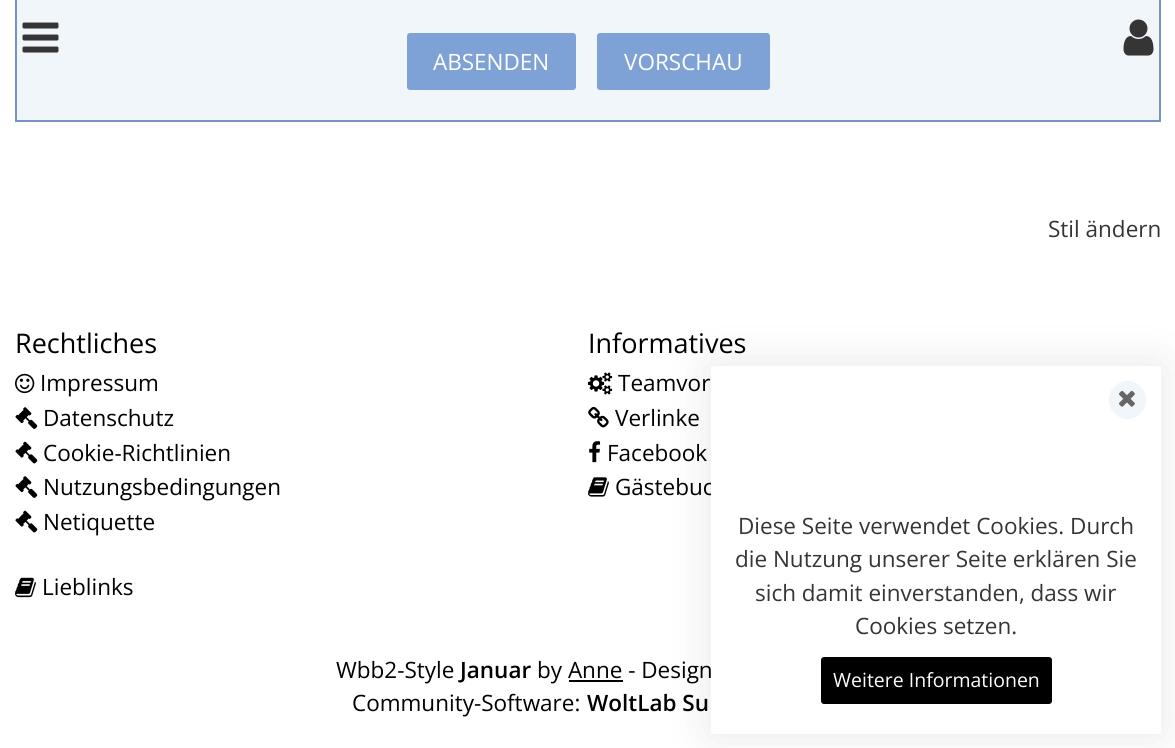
import math
import cairo



def rounded_rect(context, x, y, w, h, r):
    context.new_sub_path()
    for i, (u, v) in enumerate([(x + w - r, y + h - r), (x + r, y + h - r), (x + r, y + r), (x + w - r, y + r)]):
        context.arc(u, v, r, i * math.pi / 2, (i + 1) * math.pi / 2)
    context.close_path()


def draw_shadow(context, x, y, w, h, r, blur, alpha):
    context.push_group_with_content(cairo.Content.ALPHA)
    context.set_operator(cairo.Operator.SOURCE)
    for i in range(15, -16, -2):
        e = blur * i / 6
        if min(w, h) + 2 * e > 0:
            context.set_source_rgba(0, 0, 0, alpha * math.erfc((i - 1) / 8.5) / 2)
            rounded_rect(context, x - e, y - e, w + 2 * e, h + 2 * e, max(0, min(r + e + blur * .6, min(w, h) / 2 + e)))
            context.fill()
    context.mask(context.pop_group())


def draw_image(context, path, x, y, w, h):
    context.save()
    context.set_source_surface(cairo.ImageSurface.create_from_png(path), x, y)
    context.rectangle(x, y, w, h)
    context.fill()
    context.restore()


def draw(context):
    context.set_source_rgb(1, 1, 1)
    context.paint()
    context.set_source_rgb(241 / 255, 246 / 255, 251 / 255)
    context.rectangle(16, -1, 1144, 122)
    context.fill_preserve()
    context.set_source_rgb(118 / 255, 148 / 255, 193 / 255)
    context.stroke()
    draw_image(context, "images/1.png", 22, 22, 37, 31)
    draw_image(context, "images/2.png", 1123, 19, 31, 37)
    context.set_source_rgb(126 / 255, 162 / 255, 214 / 255)
    rounded_rect(context, 407, 33, 169, 57, 3)
    context.fill()
    rounded_rect(context, 597, 33, 173, 57, 3)
    context.fill()
    draw_image(context, "images/3.png", 15, 373, 20, 21)
    draw_image(context, "images/4.png", 15, 407, 23, 22)
    draw_image(context, "images/5.png", 15, 441, 23, 23)
    draw_image(context, "images/4.png", 15, 476, 23, 22)
    draw_image(context, "images/5.png", 15, 510, 23, 23)
    draw_image(context, "images/6.png", 588, 372, 25, 23)
    draw_image(context, "images/7.png", 588, 406, 21, 22)
    draw_image(context, "images/8.png", 589, 441, 12, 22)
    draw_image(context, "images/9.png", 588, 477, 21, 20)
    draw_image(context, "images/10.png", 15, 577, 21, 21)
    context.set_source_rgb(0, 0, 0)
    context.rectangle(569, 680, 54, 2)
    context.fill()
    context.set_source_rgb(0, 0, 0)
    draw_shadow(context, 711, 366, 450, 368, 3, 22.5, 0.1)
    context.select_font_face("Open Sans")
    context.set_font_size(22.5)
    context.set_source_rgb(1, 1, 1)
    context.move_to(433, 70)
    context.show_text("ABSENDEN")
    context.move_to(624, 70)
    context.show_text("VORSCHAU")
    context.set_source_rgb(53 / 255, 53 / 255, 53 / 255)
    context.move_to(1048, 237)
    context.show_text("Stil ändern")
    context.set_font_size(27)
    context.set_source_rgb(0, 0, 0)
    context.move_to(15, 353)
    context.show_text("Rechtliches")
    context.set_font_size(22.5)
    context.move_to(40, 391)
    context.show_text("Impressum")
    context.move_to(43, 426)
    context.show_text("Datenschutz")
    context.move_to(43, 461)
    context.show_text("Cookie-Richtlinien")
    context.move_to(43, 495)
    context.show_text("Nutzungsbedingungen")
    context.move_to(43, 530)
    context.show_text("Netiquette")
    context.set_font_size(27)
    context.move_to(588, 353)
    context.show_text("Informatives")
    context.set_font_size(22.5)
    context.move_to(618, 391)
    context.show_text("Teamvor")
    context.move_to(615, 426)
    context.show_text("Verlinke")
    context.move_to(607, 461)
    context.show_text("Facebook")
    context.move_to(615, 495)
    context.show_text("Gästebuc")
    context.move_to(42, 595)
    context.show_text("Lieblinks")
    context.move_to(336, 678)
    context.show_text("Wbb2-Style")
    context.select_font_face("Open Sans SemiBold")
    context.move_to(460, 678)
    context.show_text("Januar")
    context.select_font_face("Open Sans")
    context.move_to(537, 678)
    context.show_text("by Anne - Design")
    context.move_to(352, 711)
    context.show_text("Community-Software:")
    context.select_font_face("Open Sans SemiBold")
    context.move_to(587, 711)
    context.show_text("WoltLab Su")
    context.set_source_rgb(1, 1, 1)
    rounded_rect(context, 711, 366, 450, 368, 3)
    context.fill()
    context.set_source_rgb(241 / 255, 246 / 255, 251 / 255)
    rounded_rect(context, 1109, 381, 37, 38, 18.5)
    context.fill()
    draw_image(context, "images/11.png", 1119, 390, 16, 17)
    context.select_font_face("Open Sans")
    context.set_source_rgb(53 / 255, 53 / 255, 53 / 255)
    context.move_to(738, 534)
    context.show_text("Diese Seite verwendet Cookies. Durch")
    context.move_to(735, 567)
    context.show_text("die Nutzung unserer Seite erklären Sie")
    context.move_to(755, 601)
    context.show_text("sich damit einverstanden, dass wir")
    context.move_to(855, 634)
    context.show_text("Cookies setzen.")
    context.set_source_rgb(0, 0, 0)
    rounded_rect(context, 821, 657, 231, 47, 3)
    context.fill()
    context.set_font_size(19.5)
    context.set_source_rgb(1, 1, 1)
    context.move_to(833, 687)
    context.show_text("Weitere Informationen")


surface = cairo.ImageSurface(cairo.Format.RGB24, 1175, 748)
context = cairo.Context(surface)
options = cairo.FontOptions()
options.set_hint_metrics(cairo.HintMetrics.OFF)
options.set_hint_style(cairo.HintStyle.NONE)
context.set_font_options(options)
context.set_miter_limit(4)
draw(context)
surface.write_to_png("out.png")
